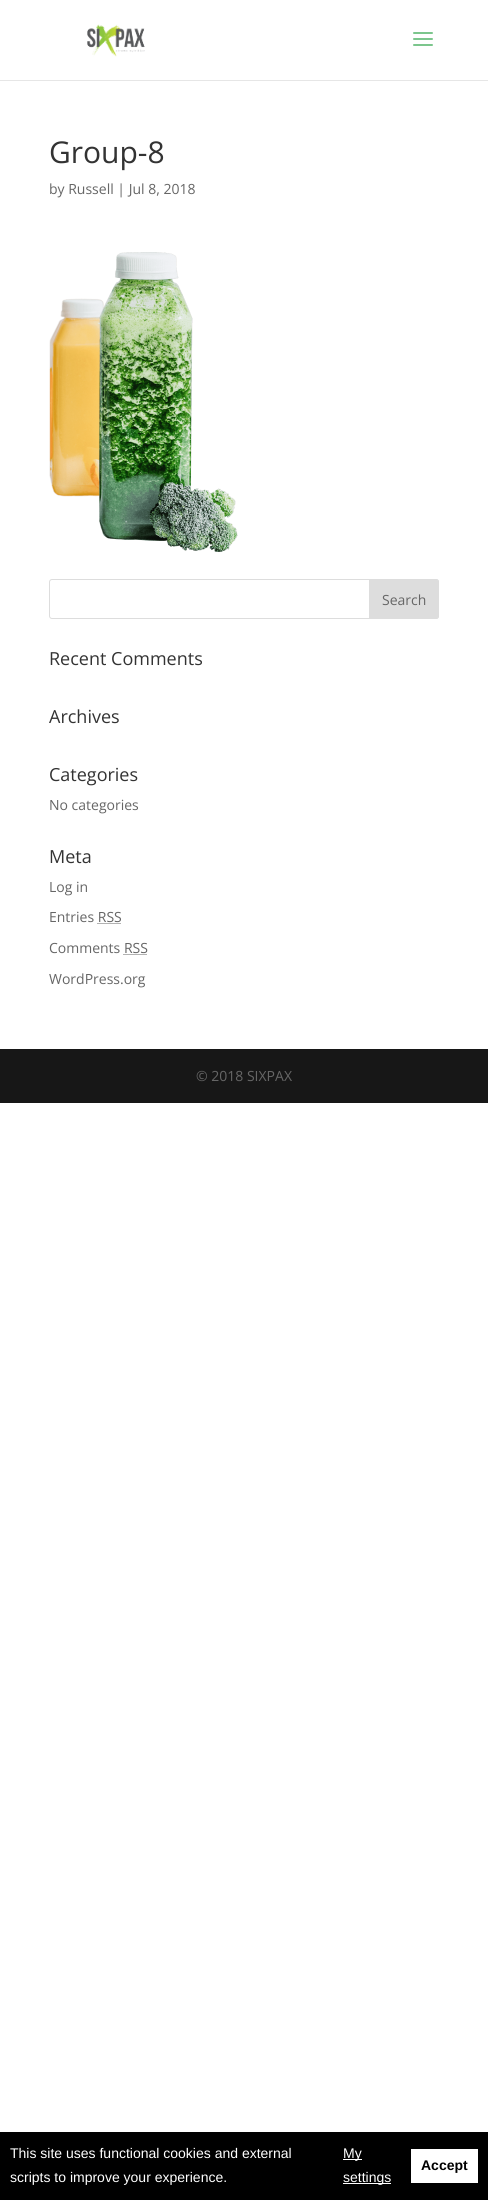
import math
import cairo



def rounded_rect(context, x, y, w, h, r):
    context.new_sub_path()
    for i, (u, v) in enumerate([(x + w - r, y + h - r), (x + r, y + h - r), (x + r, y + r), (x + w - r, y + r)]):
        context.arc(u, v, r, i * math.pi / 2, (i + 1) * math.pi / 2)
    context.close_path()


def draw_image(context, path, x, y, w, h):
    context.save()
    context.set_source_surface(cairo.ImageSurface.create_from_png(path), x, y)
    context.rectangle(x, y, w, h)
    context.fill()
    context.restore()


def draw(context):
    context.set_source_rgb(1, 1, 1)
    context.paint()
    context.set_source_rgb(230 / 255, 230 / 255, 230 / 255)
    context.rectangle(0, 80, 488, 1)
    context.fill()
    draw_image(context, "images/1.png", 87, 24, 58, 33)
    draw_image(context, "images/2.png", 413, 32, 20, 14)
    draw_image(context, "images/3.png", 49, 252, 189, 300)
    rounded_rect(context, 49.5, 579.5, 389, 39, 2.5)
    context.set_source_rgb(221 / 255, 221 / 255, 221 / 255)
    context.set_line_width(1)
    context.stroke()
    context.new_path()
    context.move_to(369.5, 579.5)
    context.line_to(436, 579.5)
    context.curve_to(437.5, 579.5, 438.5, 580.5, 438.5, 582)
    context.line_to(438.5, 616)
    context.curve_to(438.5, 617.5, 437.5, 618.5, 436, 618.5)
    context.line_to(369.5, 618.5)
    context.close_path()
    context.fill_preserve()
    context.stroke()
    context.new_path()
    context.move_to(97.5, 923.5)
    context.line_to(121.5, 923.5)
    context.set_source_rgb(102 / 255, 102 / 255, 102 / 255)
    context.set_dash([1, 1])
    context.stroke()
    context.new_path()
    context.move_to(123.5, 954.5)
    context.line_to(147.5, 954.5)
    context.stroke()
    context.set_source_rgb(23 / 255, 23 / 255, 23 / 255)
    context.rectangle(0, 1049, 488, 54)
    context.fill()
    context.set_source_rgb(0, 0, 0)
    context.rectangle(0, 2132, 488, 68)
    context.fill()
    context.set_source_rgb(1, 1, 1)
    context.rectangle(343, 2159, 19, 1)
    context.fill()
    context.rectangle(343, 2183, 48, 1)
    context.fill()
    context.rectangle(411, 2149, 67, 34)
    context.fill()
    context.select_font_face("Open Sans")
    context.set_font_size(30)
    context.set_source_rgb(51 / 255, 51 / 255, 51 / 255)
    context.move_to(49, 163)
    context.show_text("Group-8")
    context.set_font_size(14)
    context.set_source_rgb(102 / 255, 102 / 255, 102 / 255)
    context.move_to(49, 194)
    context.show_text("by Russell | Jul 8, 2018")
    context.move_to(382, 605)
    context.show_text("Search")
    context.set_font_size(18)
    context.set_source_rgb(51 / 255, 51 / 255, 51 / 255)
    context.move_to(49, 665)
    context.show_text("Recent Comments")
    context.move_to(49, 723)
    context.show_text("Archives")
    context.move_to(49, 781)
    context.show_text("Categories")
    context.set_font_size(14)
    context.set_source_rgb(102 / 255, 102 / 255, 102 / 255)
    context.move_to(49, 810)
    context.show_text("No categories")
    context.set_font_size(18)
    context.set_source_rgb(51 / 255, 51 / 255, 51 / 255)
    context.move_to(49, 863)
    context.show_text("Meta")
    context.set_font_size(14)
    context.set_source_rgb(102 / 255, 102 / 255, 102 / 255)
    context.move_to(49, 892)
    context.show_text("Log in")
    context.move_to(49, 922)
    context.show_text("Entries RSS")
    context.move_to(49, 953)
    context.show_text("Comments RSS")
    context.move_to(49, 984)
    context.show_text("WordPress.org")
    context.move_to(196, 1081)
    context.show_text("© 2018 SIXPAX")
    context.select_font_face("Liberation Sans")
    context.set_source_rgb(1, 1, 1)
    context.move_to(10, 2158)
    context.show_text("This site uses functional cookies and external")
    context.move_to(10, 2182)
    context.show_text("scripts to improve your experience.")
    context.move_to(343, 2158)
    context.show_text("My")
    context.move_to(343, 2182)
    context.show_text("settings")
    context.select_font_face("Liberation Sans", cairo.FontSlant.NORMAL, cairo.FontWeight.BOLD)
    context.set_source_rgb(0, 0, 0)
    context.move_to(421, 2170)
    context.show_text("Accept")


surface = cairo.ImageSurface(cairo.Format.RGB24, 488, 2200)
context = cairo.Context(surface)
options = cairo.FontOptions()
options.set_hint_metrics(cairo.HintMetrics.OFF)
options.set_hint_style(cairo.HintStyle.NONE)
context.set_font_options(options)
context.set_miter_limit(4)
draw(context)
surface.write_to_png("out.png")
